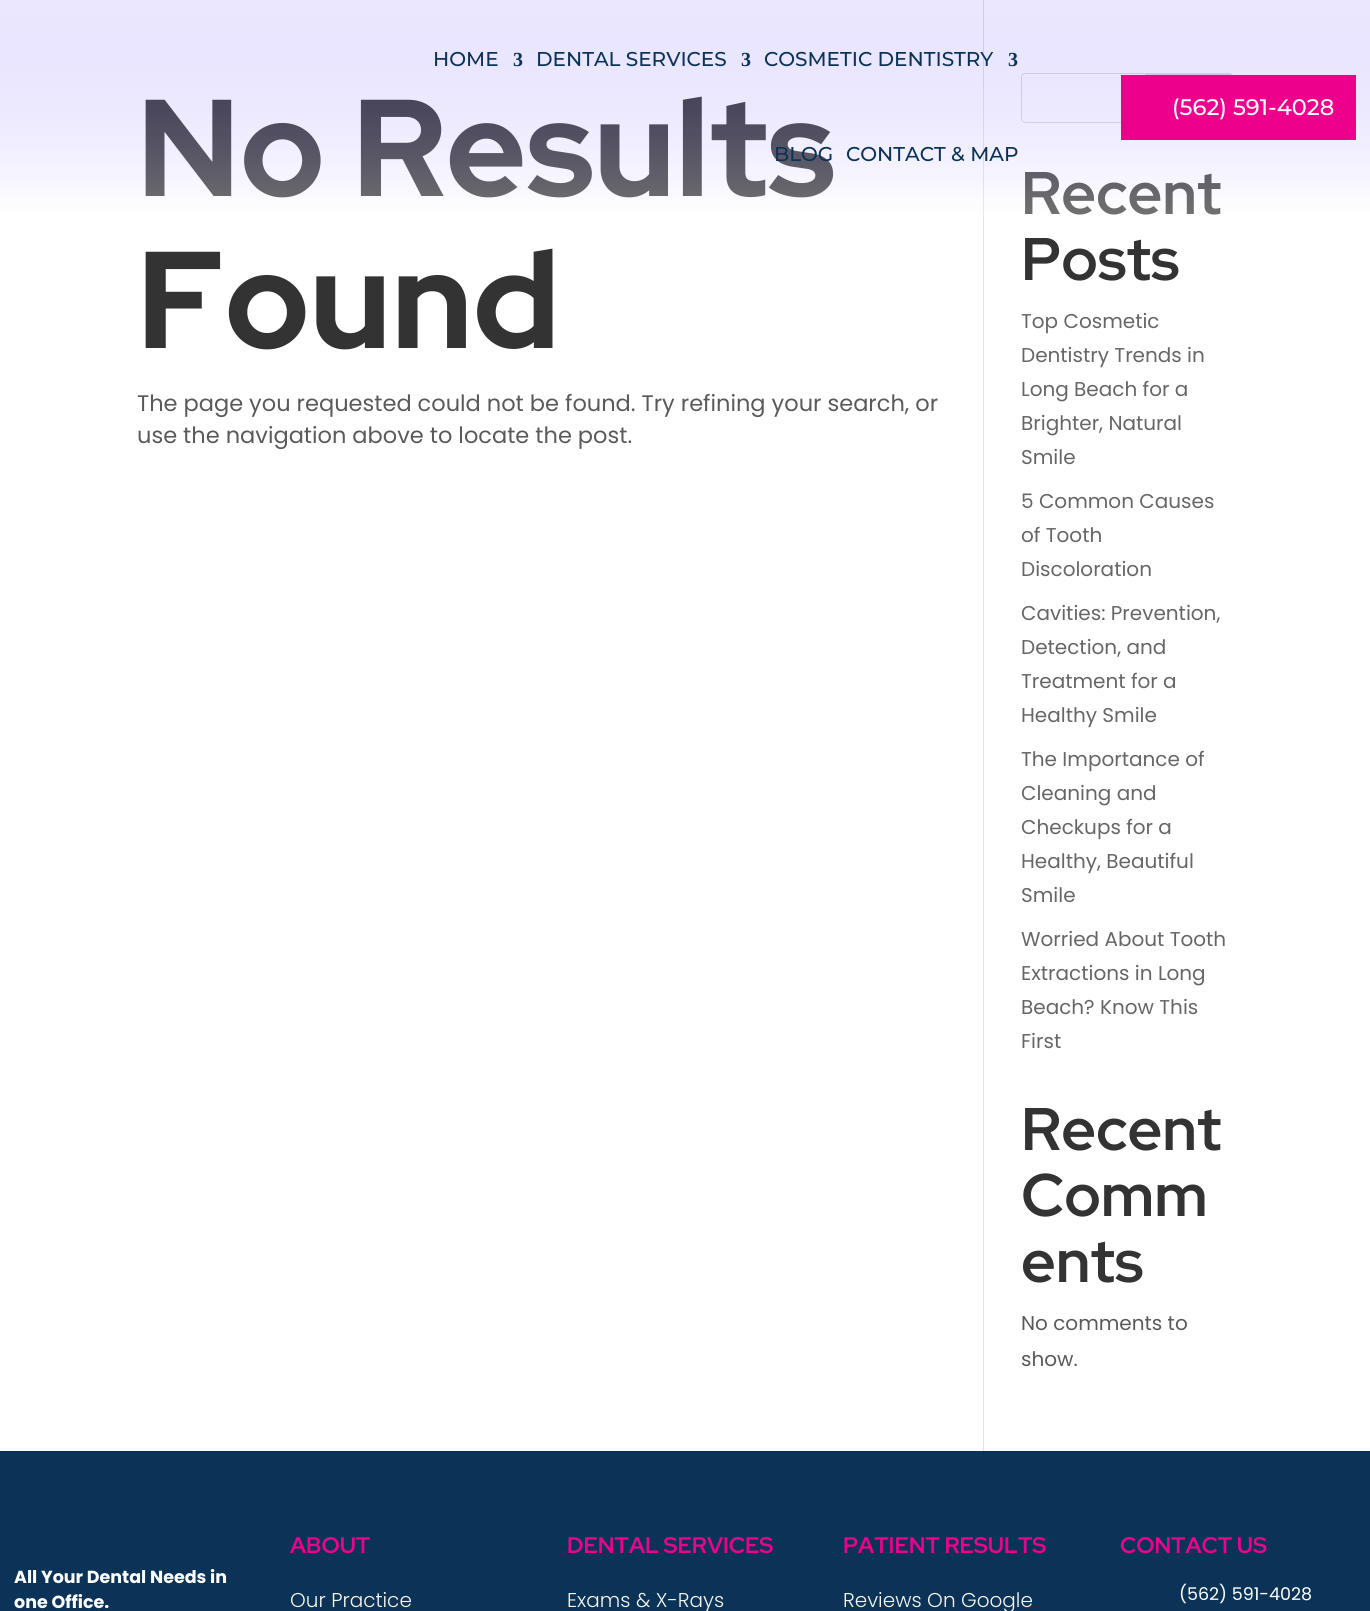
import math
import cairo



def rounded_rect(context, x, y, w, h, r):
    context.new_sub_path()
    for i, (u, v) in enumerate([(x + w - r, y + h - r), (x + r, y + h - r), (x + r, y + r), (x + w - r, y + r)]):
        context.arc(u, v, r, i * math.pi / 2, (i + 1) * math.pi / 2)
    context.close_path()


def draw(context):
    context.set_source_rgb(1, 1, 1)
    context.paint()
    context.set_source_rgb(226 / 255, 226 / 255, 226 / 255)
    context.rectangle(983, 0, 1, 1451)
    context.fill()
    rounded_rect(context, 1021.5, 73.5, 211, 49, 3.5)
    context.set_source_rgb(221 / 255, 221 / 255, 221 / 255)
    context.set_line_width(1)
    context.stroke()
    context.new_path()
    context.move_to(1145.5, 73.5)
    context.line_to(1229, 73.5)
    context.curve_to(1231, 73.5, 1232.5, 75, 1232.5, 77)
    context.line_to(1232.5, 119)
    context.curve_to(1232.5, 121, 1231, 122.5, 1229, 122.5)
    context.line_to(1145.5, 122.5)
    context.close_path()
    context.fill_preserve()
    context.stroke()
    context.set_source_rgb(11 / 255, 51 / 255, 87 / 255)
    context.rectangle(0, 1451, 1370, 160)
    context.fill()
    context.select_font_face("Red Hat Display ExtraBold")
    context.set_font_size(137.5)
    context.set_source_rgb(51 / 255, 51 / 255, 51 / 255)
    context.move_to(137, 196)
    context.show_text("No Results")
    context.move_to(137, 348)
    context.show_text("Found")
    context.select_font_face("Poppins")
    context.set_font_size(22.5)
    context.set_source_rgb(90 / 255, 90 / 255, 90 / 255)
    context.move_to(137, 411)
    context.show_text("The page you requested could not be found. Try refining your search, or")
    context.move_to(137, 443)
    context.show_text("use the navigation above to locate the post.")
    context.select_font_face("Red Hat Display", cairo.FontSlant.NORMAL, cairo.FontWeight.BOLD)
    context.set_font_size(60)
    context.set_source_rgb(51 / 255, 51 / 255, 51 / 255)
    context.move_to(1021, 214)
    context.show_text("Recent")
    gradient = cairo.LinearGradient(685, 0, 685, 215)
    gradient.add_color_stop_rgba(0, 72 / 255, 42 / 255, 253 / 255, 0.11)
    gradient.add_color_stop_rgba(1, 1, 1, 1, 0.3)
    context.set_source(gradient)
    context.rectangle(0, 0, 1370, 215)
    context.fill()
    context.select_font_face("Montserrat Medium")
    context.set_font_size(20)
    context.set_source_rgb(11 / 255, 51 / 255, 87 / 255)
    context.move_to(846, 161)
    context.show_text("CONTACT & MAP")
    context.move_to(774, 161)
    context.show_text("BLOG")
    context.select_font_face("Liberation Serif", cairo.FontSlant.NORMAL, cairo.FontWeight.BOLD)
    context.move_to(1008, 66)
    context.show_text("3")
    context.select_font_face("Montserrat Medium")
    context.move_to(764, 66)
    context.show_text("COSMETIC DENTISTRY")
    context.select_font_face("Liberation Serif", cairo.FontSlant.NORMAL, cairo.FontWeight.BOLD)
    context.move_to(741, 66)
    context.show_text("3")
    context.select_font_face("Montserrat Medium")
    context.move_to(536, 66)
    context.show_text("DENTAL SERVICES")
    context.select_font_face("Liberation Serif", cairo.FontSlant.NORMAL, cairo.FontWeight.BOLD)
    context.move_to(513, 66)
    context.show_text("3")
    context.select_font_face("Montserrat Medium")
    context.move_to(433, 66)
    context.show_text("HOME")
    context.set_source_rgb(237 / 255, 0, 140 / 255)
    context.rectangle(1121, 75, 235, 65)
    context.fill()
    context.set_font_size(22.5)
    context.set_source_rgb(1, 1, 1)
    context.move_to(1172, 115)
    context.show_text("(562) 591-4028")
    context.select_font_face("Red Hat Display", cairo.FontSlant.NORMAL, cairo.FontWeight.BOLD)
    context.set_font_size(60)
    context.set_source_rgb(51 / 255, 51 / 255, 51 / 255)
    context.move_to(1021, 280)
    context.show_text("Posts")
    context.select_font_face("Poppins")
    context.set_font_size(20)
    context.set_source_rgb(102 / 255, 102 / 255, 102 / 255)
    context.move_to(1021, 328)
    context.show_text("Top Cosmetic")
    context.move_to(1021, 362)
    context.show_text("Dentistry Trends in")
    context.move_to(1021, 396)
    context.show_text("Long Beach for a")
    context.move_to(1021, 430)
    context.show_text("Brighter, Natural")
    context.move_to(1021, 464)
    context.show_text("Smile")
    context.move_to(1021, 508)
    context.show_text("5 Common Causes")
    context.move_to(1021, 542)
    context.show_text("of Tooth")
    context.move_to(1021, 576)
    context.show_text("Discoloration")
    context.move_to(1021, 620)
    context.show_text("Cavities: Prevention,")
    context.move_to(1021, 654)
    context.show_text("Detection, and")
    context.move_to(1021, 688)
    context.show_text("Treatment for a")
    context.move_to(1021, 722)
    context.show_text("Healthy Smile")
    context.move_to(1021, 766)
    context.show_text("The Importance of")
    context.move_to(1021, 800)
    context.show_text("Cleaning and")
    context.move_to(1021, 834)
    context.show_text("Checkups for a")
    context.move_to(1021, 868)
    context.show_text("Healthy, Beautiful")
    context.move_to(1021, 902)
    context.show_text("Smile")
    context.move_to(1021, 946)
    context.show_text("Worried About Tooth")
    context.move_to(1021, 980)
    context.show_text("Extractions in Long")
    context.move_to(1021, 1014)
    context.show_text("Beach? Know This")
    context.move_to(1021, 1048)
    context.show_text("First")
    context.select_font_face("Red Hat Display", cairo.FontSlant.NORMAL, cairo.FontWeight.BOLD)
    context.set_font_size(60)
    context.set_source_rgb(51 / 255, 51 / 255, 51 / 255)
    context.move_to(1021, 1150)
    context.show_text("Recent")
    context.move_to(1021, 1216)
    context.show_text("Comm")
    context.move_to(1021, 1282)
    context.show_text("ents")
    context.select_font_face("Poppins")
    context.set_font_size(20)
    context.set_source_rgb(90 / 255, 90 / 255, 90 / 255)
    context.move_to(1021, 1330)
    context.show_text("No comments to")
    context.move_to(1021, 1366)
    context.show_text("show.")
    context.select_font_face("Poppins", cairo.FontSlant.NORMAL, cairo.FontWeight.BOLD)
    context.set_font_size(17.5)
    context.set_source_rgb(1, 1, 1)
    context.move_to(14, 1583)
    context.show_text("All Your Dental Needs in")
    context.move_to(14, 1608)
    context.show_text("one Office.")
    context.select_font_face("Red Hat Display", cairo.FontSlant.NORMAL, cairo.FontWeight.BOLD)
    context.set_font_size(22.5)
    context.set_source_rgb(237 / 255, 0, 140 / 255)
    context.move_to(290, 1553)
    context.show_text("ABOUT")
    context.select_font_face("Poppins Light")
    context.set_font_size(20)
    context.set_source_rgb(247 / 255, 246 / 255, 238 / 255)
    context.move_to(290, 1607)
    context.show_text("Our Practice")
    context.select_font_face("Red Hat Display", cairo.FontSlant.NORMAL, cairo.FontWeight.BOLD)
    context.set_font_size(22.5)
    context.set_source_rgb(237 / 255, 0, 140 / 255)
    context.move_to(567, 1553)
    context.show_text("DENTAL SERVICES")
    context.select_font_face("Poppins Light")
    context.set_font_size(20)
    context.set_source_rgb(247 / 255, 246 / 255, 238 / 255)
    context.move_to(567, 1607)
    context.show_text("Exams & X-Rays")
    context.select_font_face("Red Hat Display", cairo.FontSlant.NORMAL, cairo.FontWeight.BOLD)
    context.set_font_size(22.5)
    context.set_source_rgb(237 / 255, 0, 140 / 255)
    context.move_to(843, 1553)
    context.show_text("PATIENT RESULTS")
    context.select_font_face("Poppins Light")
    context.set_font_size(20)
    context.set_source_rgb(247 / 255, 246 / 255, 238 / 255)
    context.move_to(843, 1607)
    context.show_text("Reviews On Google")
    context.select_font_face("Red Hat Display", cairo.FontSlant.NORMAL, cairo.FontWeight.BOLD)
    context.set_font_size(22.5)
    context.set_source_rgb(237 / 255, 0, 140 / 255)
    context.move_to(1120, 1553)
    context.show_text("CONTACT US")
    context.select_font_face("Poppins")
    context.set_font_size(17.5)
    context.set_source_rgb(1, 1, 1)
    context.move_to(1179, 1600)
    context.show_text("(562) 591-4028")


surface = cairo.ImageSurface(cairo.Format.RGB24, 1370, 1611)
context = cairo.Context(surface)
options = cairo.FontOptions()
options.set_hint_metrics(cairo.HintMetrics.OFF)
options.set_hint_style(cairo.HintStyle.NONE)
context.set_font_options(options)
context.set_miter_limit(4)
draw(context)
surface.write_to_png("out.png")
